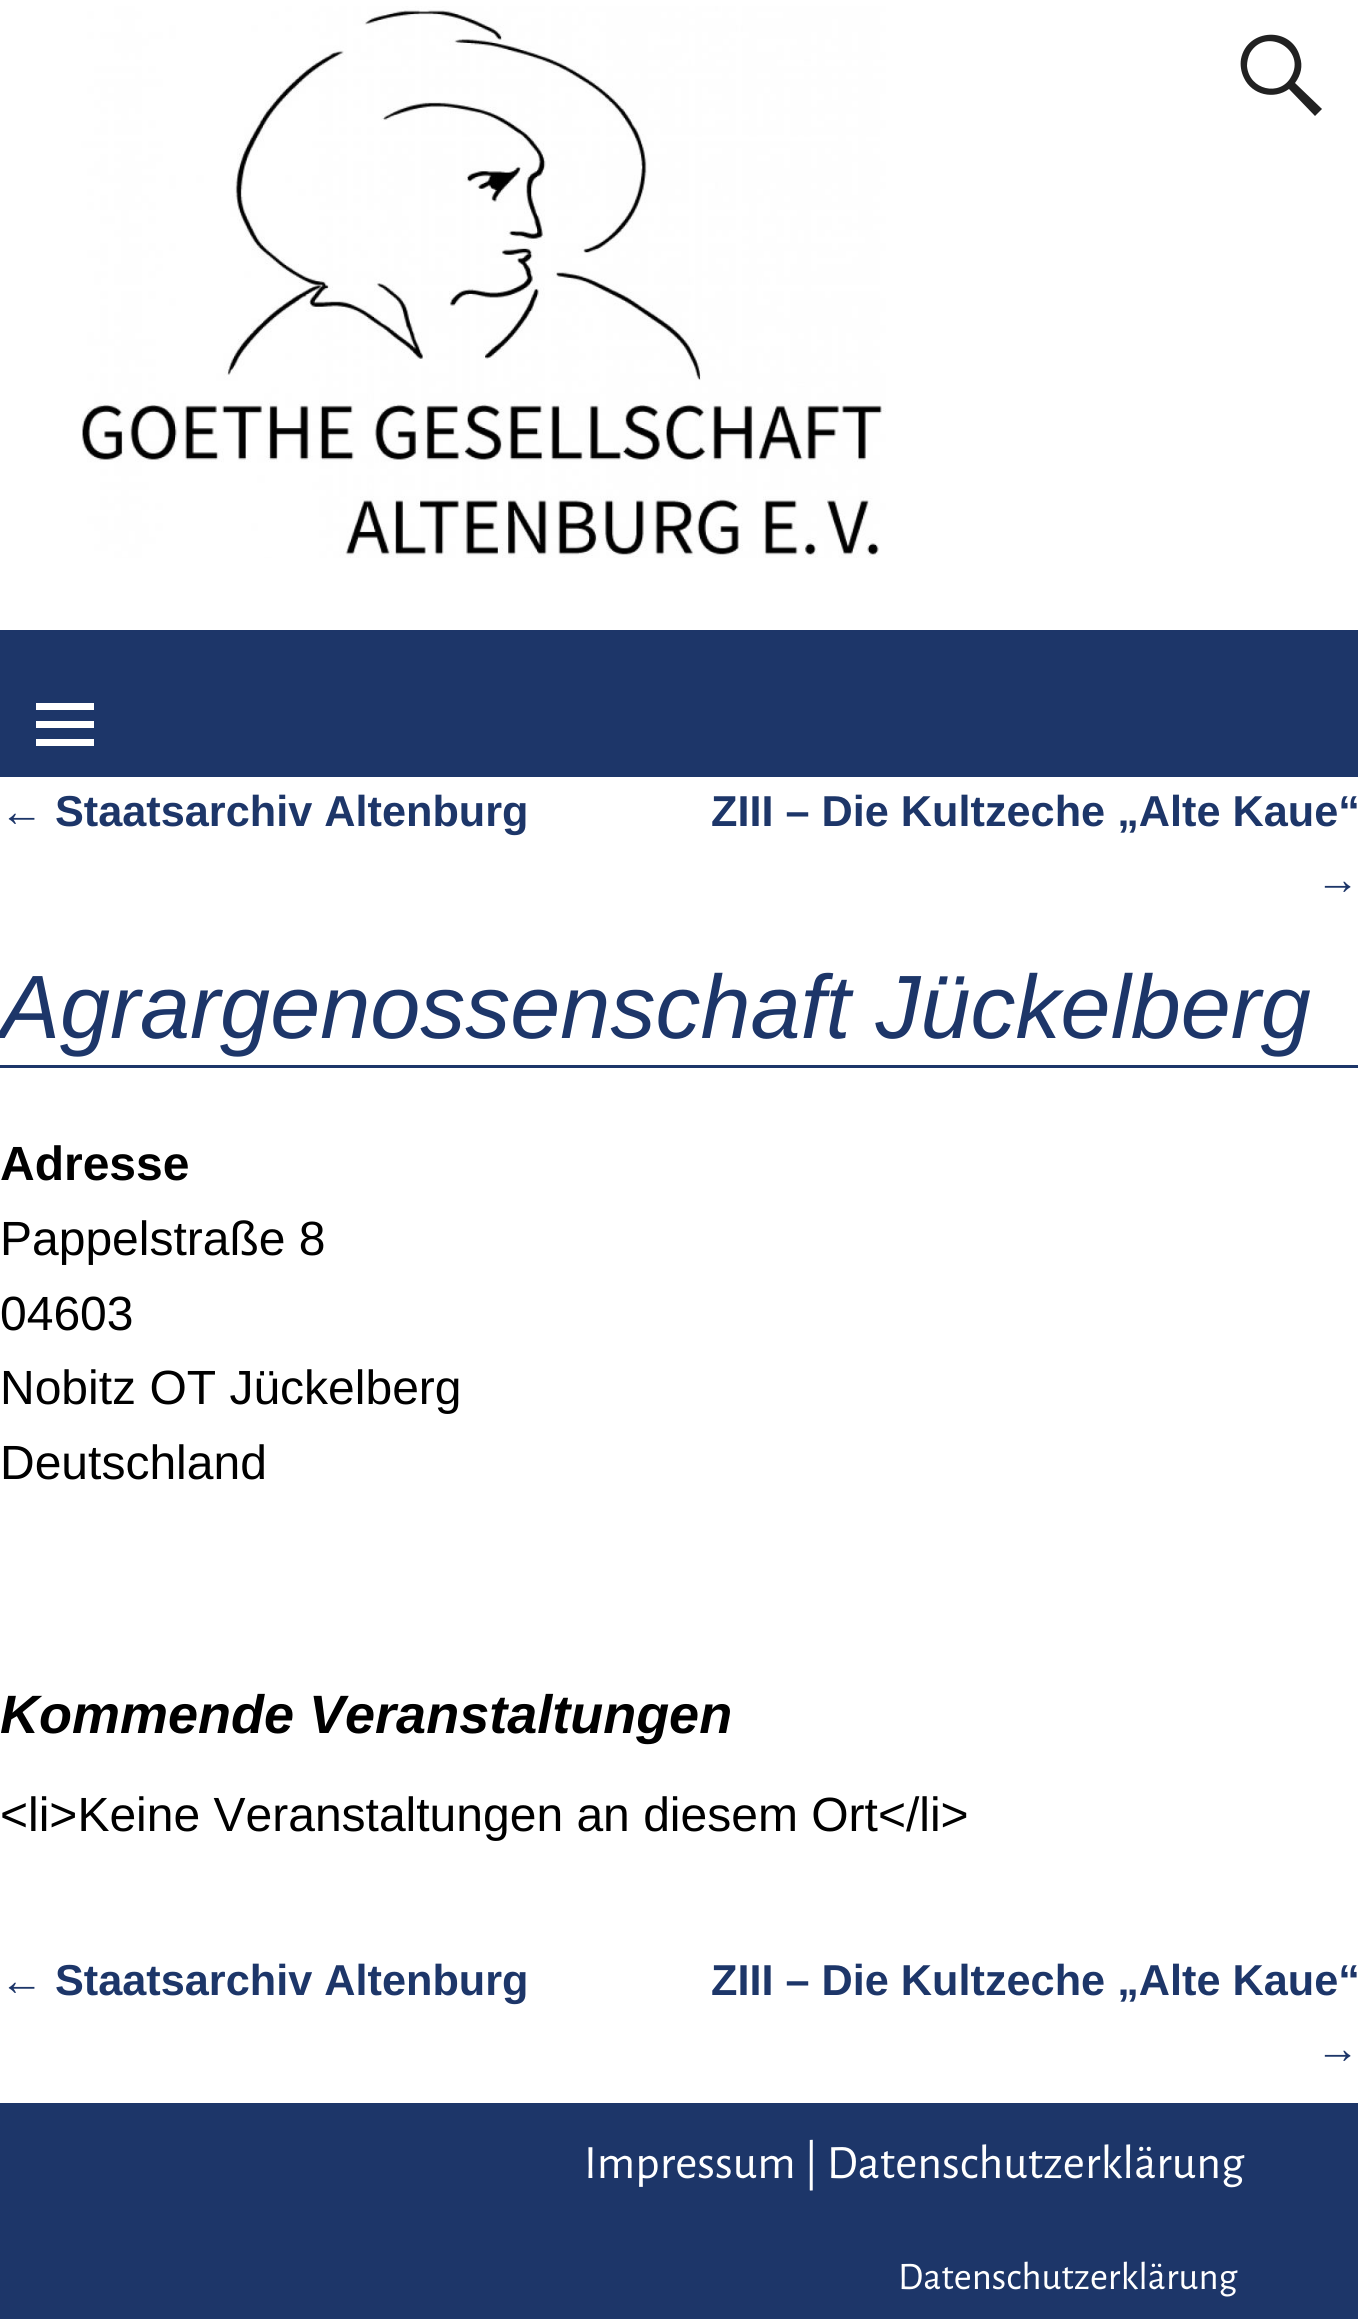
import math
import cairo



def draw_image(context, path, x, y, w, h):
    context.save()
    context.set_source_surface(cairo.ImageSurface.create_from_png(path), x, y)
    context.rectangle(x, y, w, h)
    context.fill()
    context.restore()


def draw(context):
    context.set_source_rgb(1, 1, 1)
    context.paint()
    draw_image(context, "images/1.png", 81, 6, 805, 552)
    context.set_source_rgb(33 / 255, 33 / 255, 33 / 255)
    context.new_path()
    context.move_to(1322, 109)
    context.line_to(1315, 116)
    context.line_to(1289, 89)
    context.curve_to(1274, 100, 1252, 95, 1244, 78)
    context.curve_to(1241, 72, 1240, 65, 1241, 59)
    context.curve_to(1247, 28, 1292, 26, 1300, 57)
    context.curve_to(1303, 66, 1301, 75, 1295, 83)
    context.close_path()
    context.move_to(1250, 53)
    context.curve_to(1248, 57, 1247, 62, 1247, 66)
    context.curve_to(1249, 90, 1280, 97, 1291, 77)
    context.curve_to(1307, 50, 1266, 26, 1250, 53)
    context.close_path()
    context.fill()
    context.set_source_rgb(29 / 255, 54 / 255, 105 / 255)
    context.rectangle(0, 630, 1358, 147)
    context.fill()
    context.set_source_rgb(1, 1, 1)
    context.new_path()
    context.move_to(36, 746)
    context.line_to(36, 739)
    context.line_to(94, 739)
    context.line_to(94, 746)
    context.close_path()
    context.move_to(36, 703)
    context.line_to(94, 703)
    context.line_to(94, 710)
    context.line_to(36, 710)
    context.close_path()
    context.move_to(36, 728)
    context.line_to(36, 721)
    context.line_to(94, 721)
    context.line_to(94, 728)
    context.close_path()
    context.fill()
    context.set_source_rgb(29 / 255, 54 / 255, 105 / 255)
    context.rectangle(0, 1065, 1358, 3)
    context.fill()
    context.rectangle(0, 2103, 1358, 216)
    context.fill()
    context.select_font_face("Liberation Sans")
    context.set_font_size(43.25)
    context.move_to(0, 826)
    context.show_text("←")
    context.select_font_face("Liberation Sans", cairo.FontSlant.NORMAL, cairo.FontWeight.BOLD)
    context.move_to(55, 826)
    context.show_text("Staatsarchiv Altenburg")
    context.move_to(711, 826)
    context.show_text("ZIII – Die Kultzeche „Alte Kaue“")
    context.select_font_face("Liberation Sans")
    context.move_to(1316, 894)
    context.show_text("→")
    context.select_font_face("Liberation Sans", cairo.FontSlant.ITALIC)
    context.set_font_size(90)
    context.move_to(0, 1038)
    context.show_text("Agrargenossenschaft Jückelberg")
    context.select_font_face("Liberation Sans", cairo.FontSlant.NORMAL, cairo.FontWeight.BOLD)
    context.set_font_size(48)
    context.set_source_rgb(0, 0, 0)
    context.move_to(0, 1180)
    context.show_text("Adresse")
    context.select_font_face("Liberation Sans")
    context.move_to(0, 1255)
    context.show_text("Pappelstraße 8")
    context.move_to(0, 1330)
    context.show_text("04603")
    context.move_to(0, 1404)
    context.show_text("Nobitz OT Jückelberg")
    context.move_to(0, 1479)
    context.show_text("Deutschland")
    context.select_font_face("Liberation Sans", cairo.FontSlant.ITALIC, cairo.FontWeight.BOLD)
    context.set_font_size(54)
    context.move_to(0, 1733)
    context.show_text("Kommende Veranstaltungen")
    context.select_font_face("Liberation Sans")
    context.set_font_size(48)
    context.move_to(0, 1831)
    context.show_text("<li>Keine Veranstaltungen an diesem Ort</li>")
    context.set_font_size(43.25)
    context.set_source_rgb(29 / 255, 54 / 255, 105 / 255)
    context.move_to(0, 1995)
    context.show_text("←")
    context.select_font_face("Liberation Sans", cairo.FontSlant.NORMAL, cairo.FontWeight.BOLD)
    context.move_to(55, 1995)
    context.show_text("Staatsarchiv Altenburg")
    context.move_to(711, 1995)
    context.show_text("ZIII – Die Kultzeche „Alte Kaue“")
    context.select_font_face("Liberation Sans")
    context.move_to(1316, 2063)
    context.show_text("→")
    context.select_font_face("Alegreya Sans")
    context.set_font_size(48)
    context.set_source_rgb(1, 1, 1)
    context.move_to(584, 2178)
    context.show_text("Impressum | Datenschutzerklärung")
    context.set_font_size(39)
    context.move_to(898, 2289)
    context.show_text("Datenschutzerklärung")


surface = cairo.ImageSurface(cairo.Format.RGB24, 1358, 2319)
context = cairo.Context(surface)
options = cairo.FontOptions()
options.set_hint_metrics(cairo.HintMetrics.OFF)
options.set_hint_style(cairo.HintStyle.NONE)
context.set_font_options(options)
context.set_miter_limit(4)
draw(context)
surface.write_to_png("out.png")
